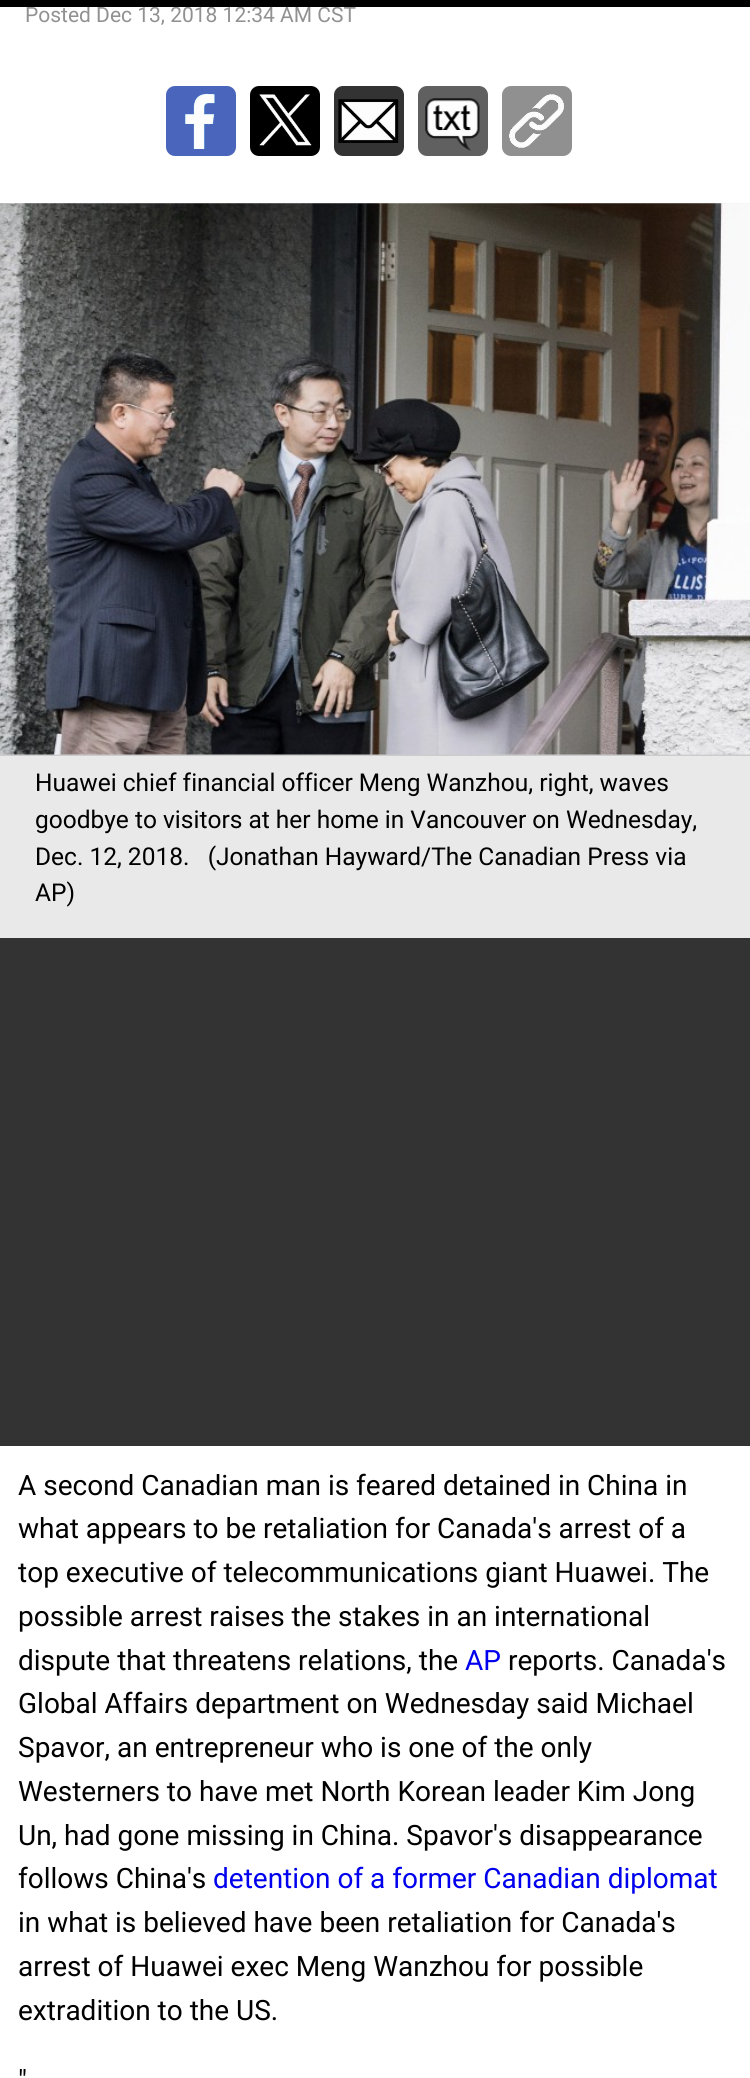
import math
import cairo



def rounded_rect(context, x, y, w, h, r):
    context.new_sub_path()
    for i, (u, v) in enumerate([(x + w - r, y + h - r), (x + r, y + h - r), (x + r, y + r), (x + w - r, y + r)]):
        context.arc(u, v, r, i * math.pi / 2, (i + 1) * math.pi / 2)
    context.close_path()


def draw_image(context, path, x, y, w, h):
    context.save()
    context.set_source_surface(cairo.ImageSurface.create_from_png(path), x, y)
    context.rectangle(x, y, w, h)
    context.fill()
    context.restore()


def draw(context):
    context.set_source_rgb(1, 1, 1)
    context.paint()
    context.set_source_rgb(74 / 255, 101 / 255, 188 / 255)
    rounded_rect(context, 166, 86, 70, 70, 9)
    context.fill()
    draw_image(context, "images/1.png", 185, 93, 30, 56)
    context.set_source_rgb(0, 0, 0)
    rounded_rect(context, 250, 86, 70, 70, 9)
    context.fill()
    draw_image(context, "images/2.png", 259, 94, 53, 52)
    context.set_source_rgb(51 / 255, 51 / 255, 51 / 255)
    rounded_rect(context, 334, 86, 70, 70, 9)
    context.fill()
    draw_image(context, "images/3.png", 338, 99, 61, 44)
    context.set_source_rgb(96 / 255, 96 / 255, 96 / 255)
    rounded_rect(context, 418, 86, 70, 70, 9)
    context.fill()
    draw_image(context, "images/4.png", 425, 98, 55, 53)
    context.set_source_rgb(144 / 255, 144 / 255, 144 / 255)
    rounded_rect(context, 502, 86, 70, 70, 9)
    context.fill()
    draw_image(context, "images/5.png", 509, 94, 55, 54)
    context.set_source_rgb(233 / 255, 233 / 255, 233 / 255)
    context.rectangle(0, 203, 750, 735)
    context.fill()
    context.set_source_rgb(204 / 255, 204 / 255, 204 / 255)
    context.rectangle(0, 754, 750, 2)
    context.fill()
    draw_image(context, "images/6.png", 0, 203, 750, 552)
    context.set_source_rgb(51 / 255, 51 / 255, 51 / 255)
    context.rectangle(0, 938, 750, 508)
    context.fill()
    context.select_font_face("Roboto")
    context.set_font_size(21)
    context.set_source_rgb(145 / 255, 145 / 255, 145 / 255)
    context.move_to(25, 22)
    context.show_text("Posted Dec 13, 2018 12:34 AM CST")
    context.set_source_rgb(0, 0, 0)
    context.rectangle(0, 0, 750, 7)
    context.fill()
    context.set_font_size(24.5)
    context.move_to(35, 791)
    context.show_text("Huawei chief financial officer Meng Wanzhou, right, waves")
    context.move_to(35, 828)
    context.show_text("goodbye to visitors at her home in Vancouver on Wednesday,")
    context.move_to(35, 865)
    context.show_text("Dec. 12, 2018.   (Jonathan Hayward/The Canadian Press via")
    context.move_to(35, 901)
    context.show_text("AP)")
    context.set_font_size(28)
    context.move_to(18, 1495)
    context.show_text("A second Canadian man is feared detained in China in")
    context.move_to(18, 1538)
    context.show_text("what appears to be retaliation for Canada's arrest of a")
    context.move_to(18, 1582)
    context.show_text("top executive of telecommunications giant Huawei. The")
    context.move_to(18, 1626)
    context.show_text("possible arrest raises the stakes in an international")
    context.move_to(18, 1670)
    context.show_text("dispute that threatens relations, the")
    context.set_source_rgb(0, 0, 238 / 255)
    context.move_to(465, 1670)
    context.show_text("AP")
    context.set_source_rgb(0, 0, 0)
    context.move_to(508, 1670)
    context.show_text("reports. Canada's")
    context.move_to(18, 1713)
    context.show_text("Global Affairs department on Wednesday said Michael")
    context.move_to(18, 1757)
    context.show_text("Spavor, an entrepreneur who is one of the only")
    context.move_to(18, 1801)
    context.show_text("Westerners to have met North Korean leader Kim Jong")
    context.move_to(18, 1845)
    context.show_text("Un, had gone missing in China. Spavor's disappearance")
    context.move_to(18, 1888)
    context.show_text("follows China's")
    context.set_source_rgb(0, 0, 238 / 255)
    context.move_to(213, 1888)
    context.show_text("detention of a former Canadian diplomat")
    context.set_source_rgb(0, 0, 0)
    context.move_to(18, 1932)
    context.show_text("in what is believed have been retaliation for Canada's")
    context.move_to(18, 1976)
    context.show_text("arrest of Huawei exec Meng Wanzhou for possible")
    context.move_to(18, 2020)
    context.show_text("extradition to the US.")
    context.move_to(18, 2090)
    context.show_text("\"")


surface = cairo.ImageSurface(cairo.Format.RGB24, 750, 2078)
context = cairo.Context(surface)
options = cairo.FontOptions()
options.set_hint_metrics(cairo.HintMetrics.OFF)
options.set_hint_style(cairo.HintStyle.NONE)
context.set_font_options(options)
context.set_miter_limit(4)
draw(context)
surface.write_to_png("out.png")
